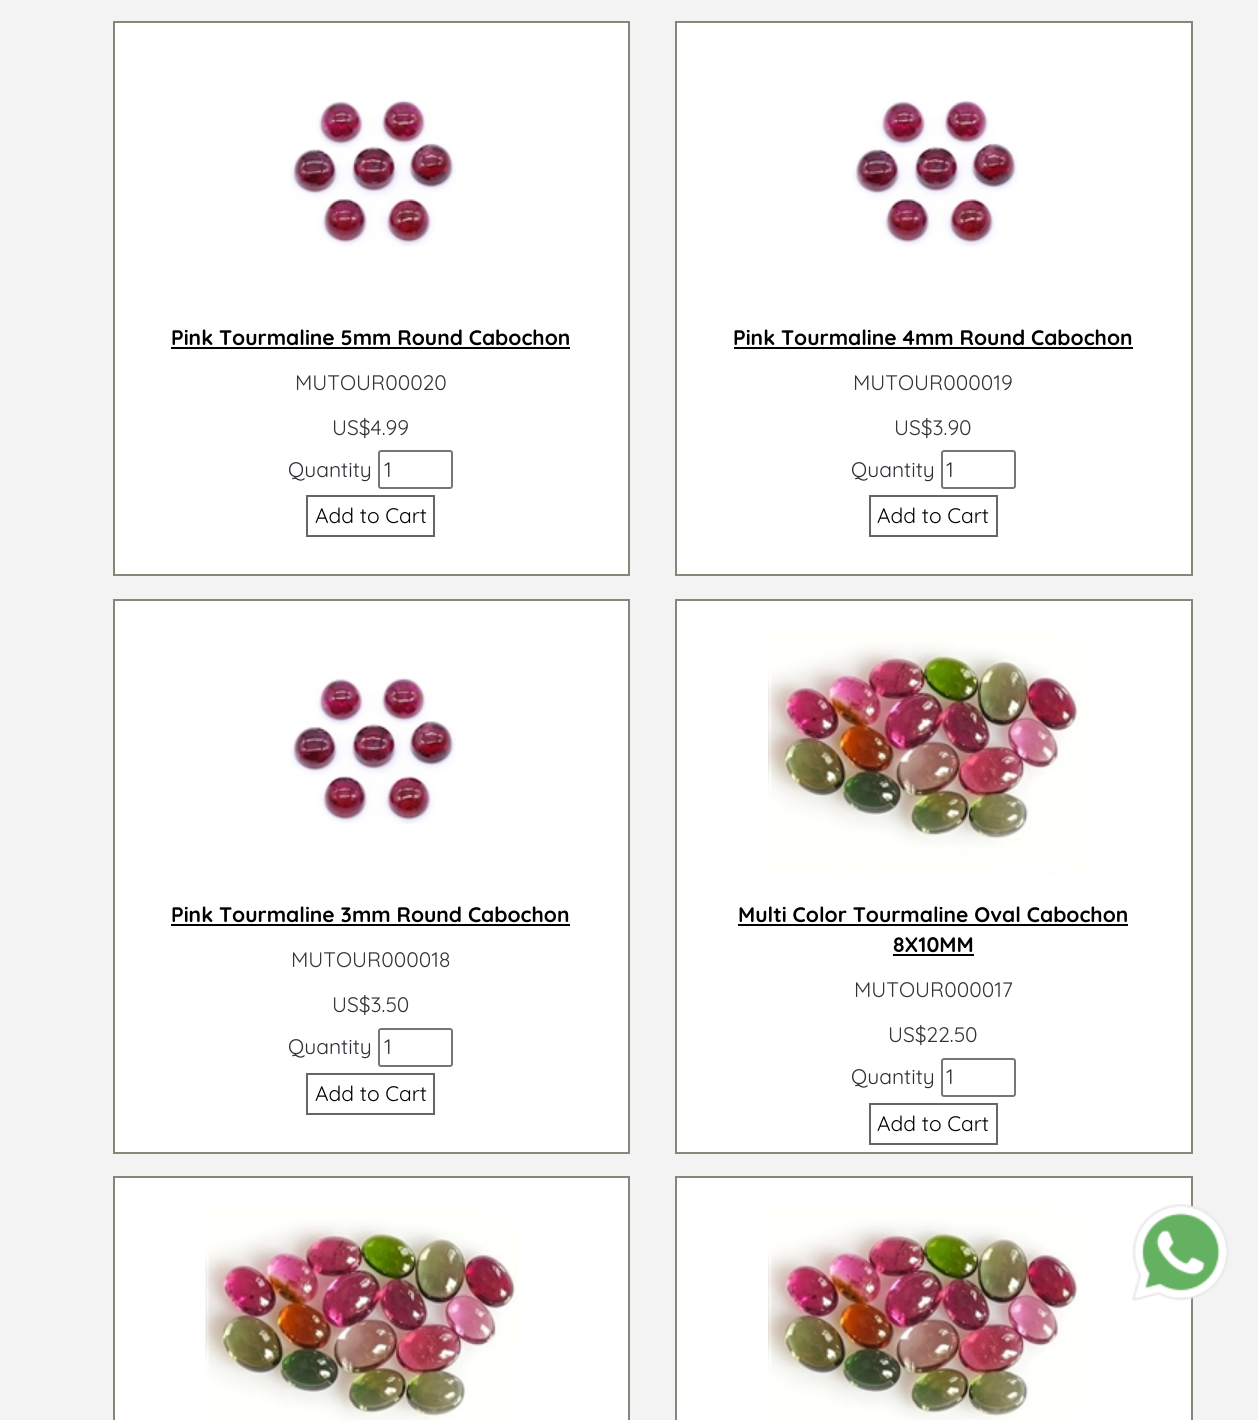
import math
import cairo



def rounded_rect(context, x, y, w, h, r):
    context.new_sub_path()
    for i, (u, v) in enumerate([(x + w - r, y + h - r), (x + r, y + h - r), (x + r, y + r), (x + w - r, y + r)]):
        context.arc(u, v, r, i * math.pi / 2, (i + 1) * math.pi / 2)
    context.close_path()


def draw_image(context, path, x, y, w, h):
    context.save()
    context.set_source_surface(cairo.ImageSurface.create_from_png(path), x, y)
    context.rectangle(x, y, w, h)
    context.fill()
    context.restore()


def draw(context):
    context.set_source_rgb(243 / 255, 243 / 255, 243 / 255)
    context.paint()
    context.set_source_rgb(1, 1, 1)
    context.rectangle(114, 22, 515, 553)
    context.fill_preserve()
    context.set_source_rgb(136 / 255, 134 / 255, 121 / 255)
    context.stroke()
    draw_image(context, "images/1.png", 290, 100, 166, 147)
    context.set_source_rgb(0, 0, 0)
    context.rectangle(171, 347, 399, 2)
    context.fill()
    rounded_rect(context, 379, 451, 73, 37, 2)
    context.set_source_rgb(118 / 255, 118 / 255, 118 / 255)
    context.stroke()
    context.rectangle(307, 496, 127, 40)
    context.set_source_rgb(102 / 255, 102 / 255, 102 / 255)
    context.stroke()
    context.set_source_rgb(1, 1, 1)
    context.rectangle(676, 22, 516, 553)
    context.fill_preserve()
    context.set_source_rgb(136 / 255, 134 / 255, 121 / 255)
    context.stroke()
    draw_image(context, "images/2.png", 852, 100, 166, 147)
    context.set_source_rgb(0, 0, 0)
    context.rectangle(734, 347, 399, 2)
    context.fill()
    rounded_rect(context, 942, 451, 73, 37, 2)
    context.set_source_rgb(118 / 255, 118 / 255, 118 / 255)
    context.stroke()
    context.rectangle(870, 496, 127, 40)
    context.set_source_rgb(102 / 255, 102 / 255, 102 / 255)
    context.stroke()
    context.set_source_rgb(1, 1, 1)
    context.rectangle(114, 600, 515, 553)
    context.fill_preserve()
    context.set_source_rgb(136 / 255, 134 / 255, 121 / 255)
    context.stroke()
    draw_image(context, "images/3.png", 290, 677, 166, 147)
    context.set_source_rgb(0, 0, 0)
    context.rectangle(171, 924, 399, 2)
    context.fill()
    rounded_rect(context, 379, 1029, 73, 37, 2)
    context.set_source_rgb(118 / 255, 118 / 255, 118 / 255)
    context.stroke()
    context.rectangle(307, 1074, 127, 40)
    context.set_source_rgb(102 / 255, 102 / 255, 102 / 255)
    context.stroke()
    context.set_source_rgb(1, 1, 1)
    context.rectangle(676, 600, 516, 553)
    context.fill_preserve()
    context.set_source_rgb(136 / 255, 134 / 255, 121 / 255)
    context.stroke()
    draw_image(context, "images/4.png", 768, 631, 326, 243)
    context.set_source_rgb(0, 0, 0)
    context.rectangle(738, 924, 390, 2)
    context.fill()
    context.rectangle(893, 954, 81, 2)
    context.fill()
    rounded_rect(context, 942, 1059, 73, 37, 2)
    context.set_source_rgb(118 / 255, 118 / 255, 118 / 255)
    context.stroke()
    context.rectangle(870, 1104, 127, 40)
    context.set_source_rgb(102 / 255, 102 / 255, 102 / 255)
    context.stroke()
    context.set_source_rgb(1, 1, 1)
    context.rectangle(114, 1177, 515, 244)
    context.fill_preserve()
    context.set_source_rgb(136 / 255, 134 / 255, 121 / 255)
    context.stroke()
    draw_image(context, "images/5.png", 205, 1208, 316, 212)
    context.set_source_rgb(1, 1, 1)
    context.rectangle(676, 1177, 516, 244)
    context.fill_preserve()
    context.set_source_rgb(136 / 255, 134 / 255, 121 / 255)
    context.stroke()
    draw_image(context, "images/6.png", 768, 1208, 316, 212)
    draw_image(context, "images/7.png", 1132, 1204, 97, 97)
    context.select_font_face("Quicksand", cairo.FontSlant.NORMAL, cairo.FontWeight.BOLD)
    context.set_font_size(21)
    context.set_source_rgb(0, 0, 0)
    context.move_to(171, 345)
    context.show_text("Pink Tourmaline 5mm Round Cabochon")
    context.select_font_face("Quicksand")
    context.set_source_rgb(51 / 255, 53 / 255, 48 / 255)
    context.move_to(295, 390)
    context.show_text("MUTOUR00020")
    context.move_to(332, 435)
    context.show_text("US$4.99")
    context.set_source_rgb(42 / 255, 46 / 255, 51 / 255)
    context.move_to(288, 477)
    context.show_text("Quantity")
    context.move_to(384, 477)
    context.show_text("1")
    context.set_source_rgb(0, 0, 0)
    context.move_to(315, 523)
    context.show_text("Add to Cart")
    context.select_font_face("Quicksand", cairo.FontSlant.NORMAL, cairo.FontWeight.BOLD)
    context.move_to(733, 345)
    context.show_text("Pink Tourmaline 4mm Round Cabochon")
    context.select_font_face("Quicksand")
    context.set_source_rgb(51 / 255, 53 / 255, 48 / 255)
    context.move_to(853, 390)
    context.show_text("MUTOUR000019")
    context.move_to(894, 435)
    context.show_text("US$3.90")
    context.set_source_rgb(42 / 255, 46 / 255, 51 / 255)
    context.move_to(851, 477)
    context.show_text("Quantity")
    context.move_to(946, 477)
    context.show_text("1")
    context.set_source_rgb(0, 0, 0)
    context.move_to(877, 523)
    context.show_text("Add to Cart")
    context.select_font_face("Quicksand", cairo.FontSlant.NORMAL, cairo.FontWeight.BOLD)
    context.move_to(171, 922)
    context.show_text("Pink Tourmaline 3mm Round Cabochon")
    context.select_font_face("Quicksand")
    context.set_source_rgb(51 / 255, 53 / 255, 48 / 255)
    context.move_to(291, 967)
    context.show_text("MUTOUR000018")
    context.move_to(332, 1012)
    context.show_text("US$3.50")
    context.set_source_rgb(42 / 255, 46 / 255, 51 / 255)
    context.move_to(288, 1054)
    context.show_text("Quantity")
    context.move_to(384, 1054)
    context.show_text("1")
    context.set_source_rgb(0, 0, 0)
    context.move_to(315, 1101)
    context.show_text("Add to Cart")
    context.select_font_face("Quicksand", cairo.FontSlant.NORMAL, cairo.FontWeight.BOLD)
    context.move_to(738, 922)
    context.show_text("Multi Color Tourmaline Oval Cabochon")
    context.move_to(893, 952)
    context.show_text("8X10MM")
    context.select_font_face("Quicksand")
    context.set_source_rgb(51 / 255, 53 / 255, 48 / 255)
    context.move_to(854, 997)
    context.show_text("MUTOUR000017")
    context.move_to(888, 1042)
    context.show_text("US$22.50")
    context.set_source_rgb(42 / 255, 46 / 255, 51 / 255)
    context.move_to(851, 1084)
    context.show_text("Quantity")
    context.move_to(946, 1084)
    context.show_text("1")
    context.set_source_rgb(0, 0, 0)
    context.move_to(877, 1131)
    context.show_text("Add to Cart")


surface = cairo.ImageSurface(cairo.Format.RGB24, 1258, 1420)
context = cairo.Context(surface)
options = cairo.FontOptions()
options.set_hint_metrics(cairo.HintMetrics.OFF)
options.set_hint_style(cairo.HintStyle.NONE)
context.set_font_options(options)
context.set_miter_limit(4)
draw(context)
surface.write_to_png("out.png")
